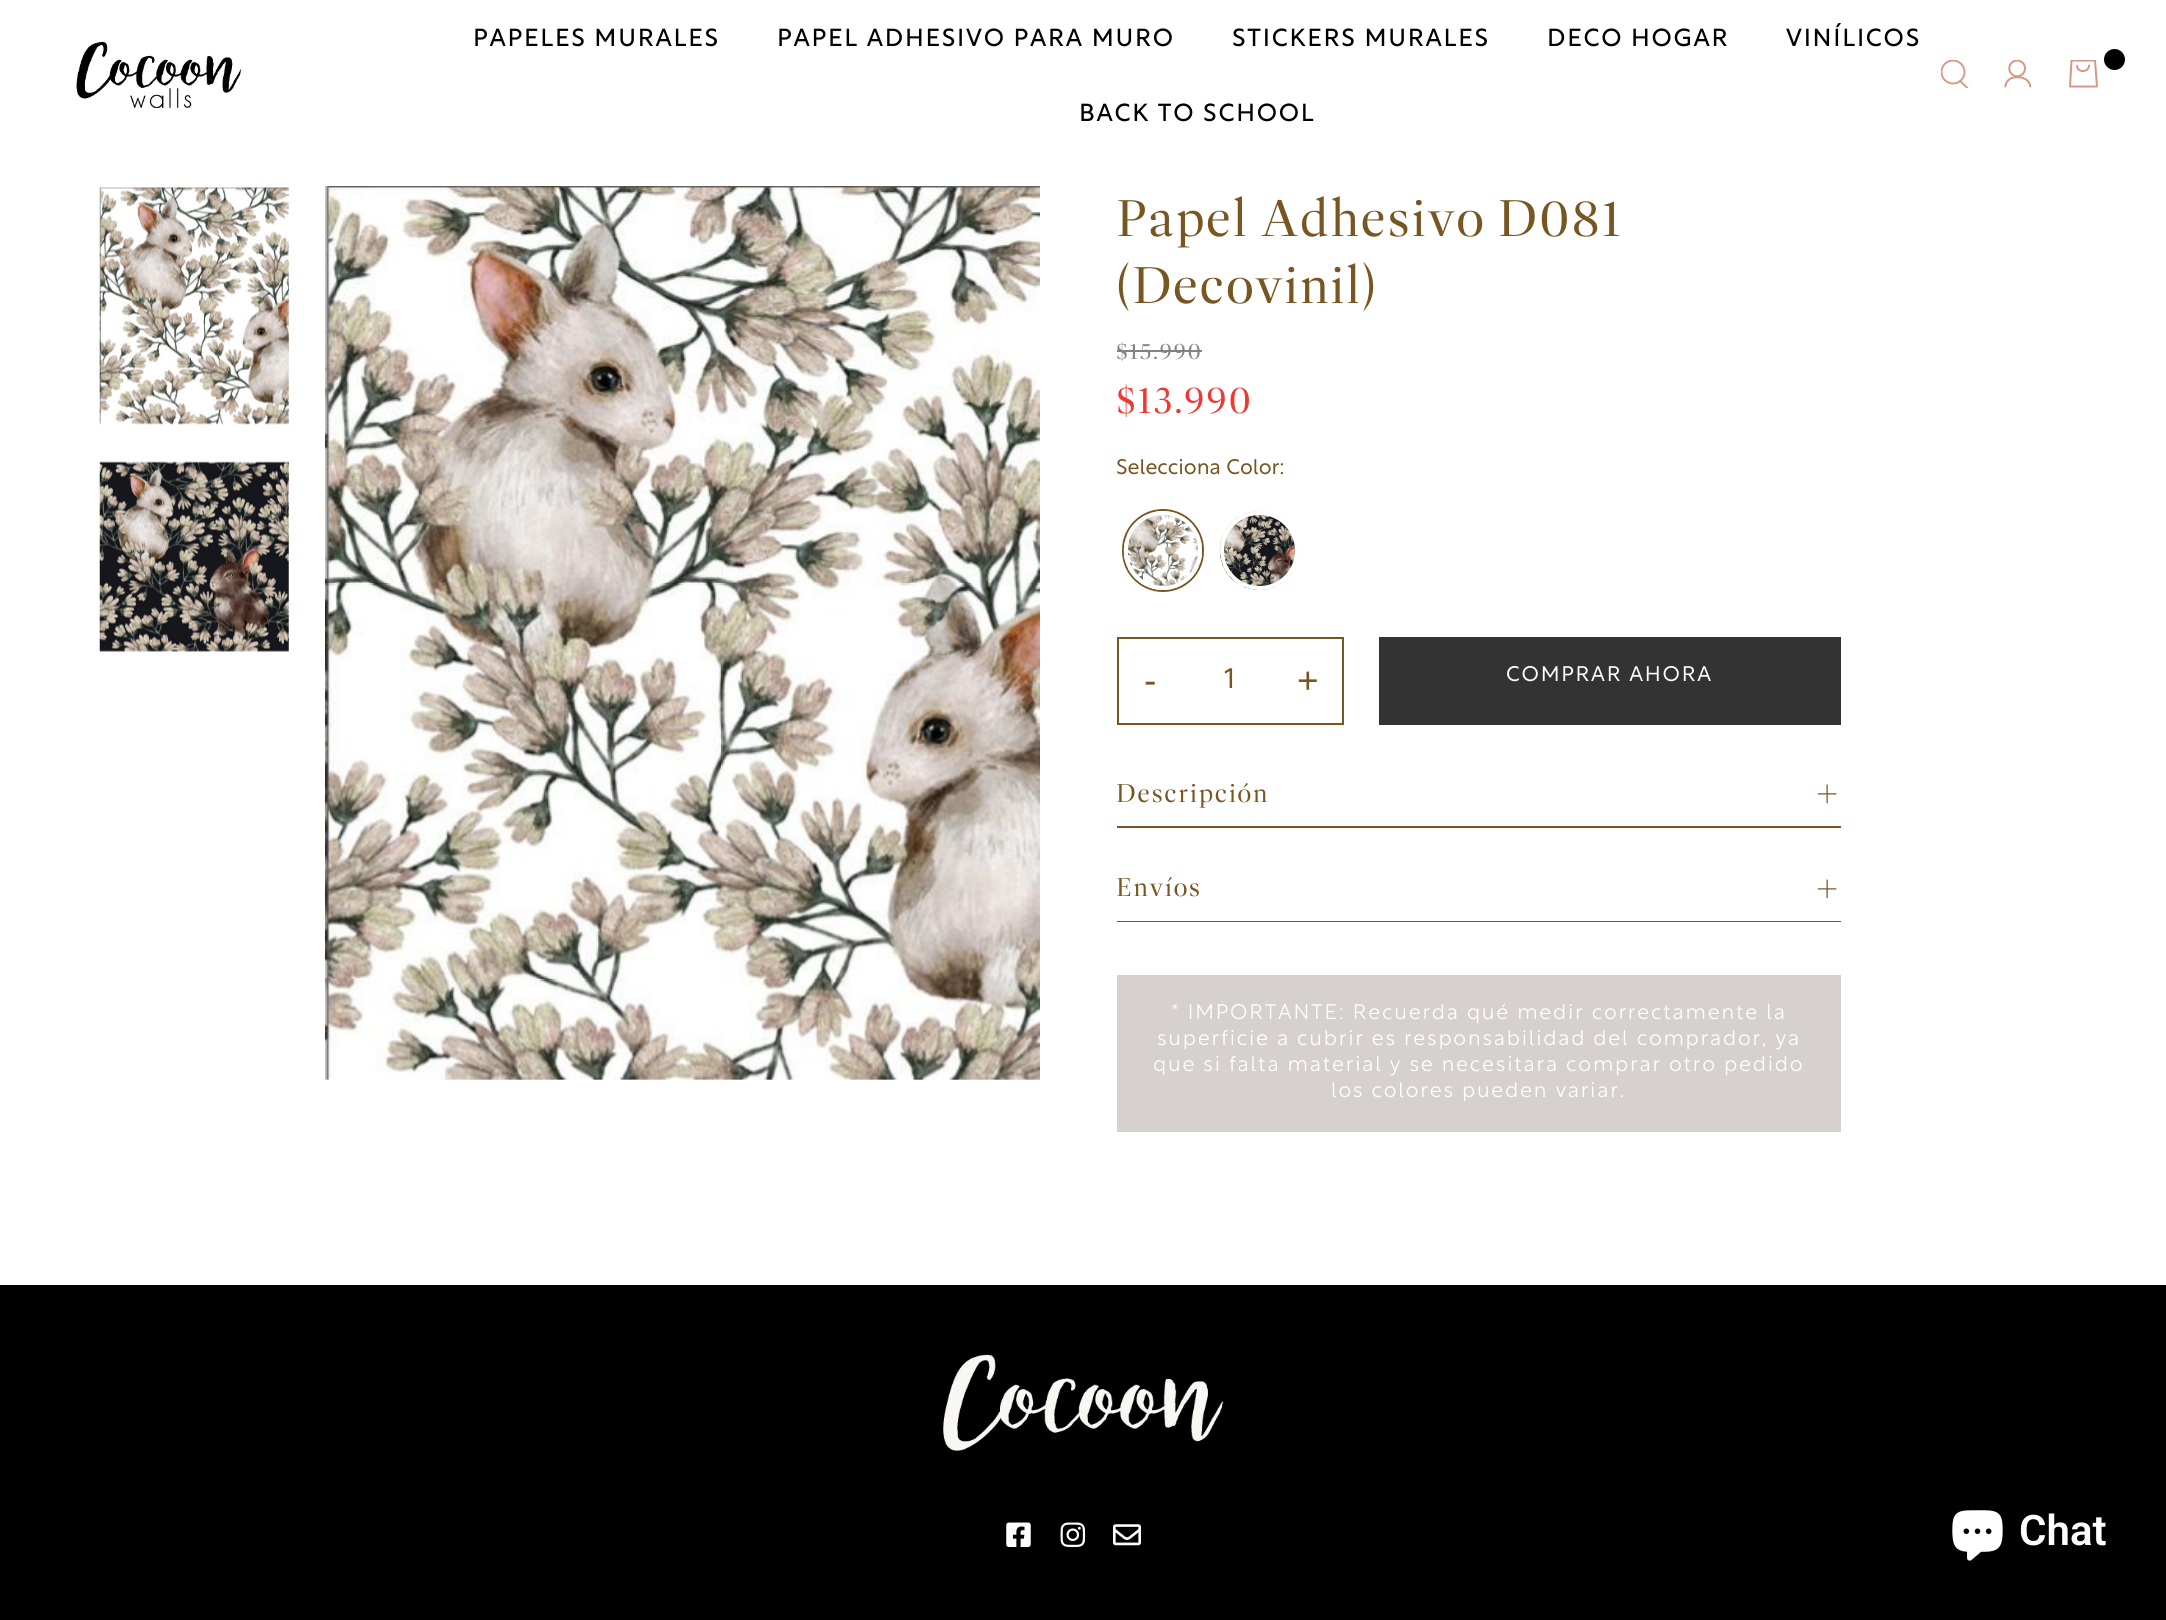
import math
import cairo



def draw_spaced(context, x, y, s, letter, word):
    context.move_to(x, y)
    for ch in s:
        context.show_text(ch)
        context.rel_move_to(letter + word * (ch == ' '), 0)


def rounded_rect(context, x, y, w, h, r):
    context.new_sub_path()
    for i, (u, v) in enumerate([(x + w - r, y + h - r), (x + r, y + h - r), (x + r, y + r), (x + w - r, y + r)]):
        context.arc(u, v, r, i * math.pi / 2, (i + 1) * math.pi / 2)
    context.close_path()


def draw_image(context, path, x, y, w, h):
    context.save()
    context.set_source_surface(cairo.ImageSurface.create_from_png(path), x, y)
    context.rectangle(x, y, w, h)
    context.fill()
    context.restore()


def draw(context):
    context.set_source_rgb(1, 1, 1)
    context.paint()
    draw_image(context, "images/1.png", 76, 41, 166, 67)
    context.save()
    context.rectangle(1941, 60, 28, 28)
    context.clip()
    context.arc(1953, 72, 11.5, 0, 2 * math.pi)
    context.set_source_rgb(214 / 255, 152 / 255, 133 / 255)
    context.set_line_width(1.9)
    context.stroke()
    context.new_path()
    context.move_to(1967.5, 88)
    context.line_to(1960, 81)
    context.set_line_cap(cairo.LineCap.ROUND)
    context.stroke()
    context.restore()
    draw_image(context, "images/2.png", 2004, 60, 28, 28)
    context.save()
    context.rectangle(2069, 60, 29, 28)
    context.clip()
    context.new_path()
    context.move_to(2071.5, 60.5)
    context.line_to(2070, 86.5)
    context.line_to(2097, 86.5)
    context.line_to(2095, 60.5)
    context.close_path()
    context.set_source_rgb(214 / 255, 152 / 255, 133 / 255)
    context.set_line_cap(cairo.LineCap.ROUND)
    context.set_line_join(cairo.LineJoin.ROUND)
    context.stroke()
    context.restore()
    context.new_path()
    context.move_to(2089, 65.5)
    context.curve_to(2089, 72.5, 2077.5, 73, 2077, 66)
    context.set_source_rgb(214 / 255, 152 / 255, 133 / 255)
    context.set_line_cap(cairo.LineCap.ROUND)
    context.stroke()
    context.set_source_rgb(0, 0, 0)
    context.arc(2114.5, 59.5, 10.5, 0, 2 * math.pi)
    context.fill()
    draw_image(context, "images/3.png", 99, 187, 190, 238)
    draw_image(context, "images/4.png", 99, 461, 190, 191)
    draw_image(context, "images/5.png", 325, 186, 715, 894)
    context.set_source_rgb(130 / 255, 130 / 255, 130 / 255)
    context.rectangle(1117, 350, 85, 2)
    context.fill()
    rounded_rect(context, 1123, 510, 80, 81, 40)
    context.set_source_rgb(119 / 255, 86 / 255, 34 / 255)
    context.set_line_cap(cairo.LineCap.BUTT)
    context.stroke()
    draw_image(context, "images/6.png", 1123, 511, 80, 79)
    rounded_rect(context, 1126, 513, 74, 75, 37)
    context.set_source_rgb(1, 1, 1)
    context.set_line_width(4)
    context.stroke()
    draw_image(context, "images/7.png", 1219, 511, 80, 79)
    context.arc(1259.5, 550.5, 37.5, 0, 2 * math.pi)
    context.stroke()
    context.rectangle(1118, 638, 225, 86)
    context.set_source_rgb(119 / 255, 86 / 255, 34 / 255)
    context.set_line_width(2)
    context.stroke()
    context.set_source_rgb(51 / 255, 51 / 255, 51 / 255)
    context.rectangle(1379, 637, 462, 88)
    context.fill()
    context.set_source_rgb(119 / 255, 86 / 255, 34 / 255)
    context.rectangle(1117, 826, 724, 2)
    context.fill()
    context.rectangle(1117, 921, 724, 1)
    context.fill()
    context.set_source_rgb(214 / 255, 208 / 255, 206 / 255)
    context.rectangle(1117, 975, 724, 157)
    context.fill()
    context.set_source_rgb(0, 0, 0)
    context.rectangle(0, 1285, 2166, 335)
    context.fill()
    draw_image(context, "images/8.png", 943, 1354, 281, 97)
    draw_image(context, "images/9.png", 1006, 1522, 25, 25)
    draw_image(context, "images/10.png", 1060, 1522, 26, 25)
    draw_image(context, "images/11.png", 1113, 1524, 28, 22)
    draw_image(context, "images/12.png", 1952, 1510, 51, 51)
    context.select_font_face("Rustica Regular")
    context.set_font_size(24.5)
    draw_spaced(context, 473, 46, "PAPELES MURALES", 1.75, 0)
    draw_spaced(context, 777, 46, "PAPEL ADHESIVO PARA MURO", 1.75, 0)
    draw_spaced(context, 1232, 46, "STICKERS MURALES", 1.75, 0)
    draw_spaced(context, 1547, 46, "DECO HOGAR", 1.75, 0)
    draw_spaced(context, 1786, 46, "VINÍLICOS", 1.75, 0)
    draw_spaced(context, 1079, 121, "BACK TO SCHOOL", 1.75, 0)
    context.select_font_face("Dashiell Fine")
    context.set_font_size(52.5)
    context.set_source_rgb(119 / 255, 86 / 255, 34 / 255)
    draw_spaced(context, 1116, 236, "Papel Adhesivo D081", 1.75, 0)
    draw_spaced(context, 1116, 303, "(Decovinil)", 1.75, 0)
    context.set_font_size(23)
    context.set_source_rgb(130 / 255, 130 / 255, 130 / 255)
    draw_spaced(context, 1116, 359, "$15.990", 1.75, 0)
    context.set_font_size(38.5)
    context.set_source_rgb(237 / 255, 56 / 255, 51 / 255)
    draw_spaced(context, 1116, 413, "$13.990", 1.75, 0)
    context.select_font_face("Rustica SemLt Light")
    context.set_font_size(21)
    context.set_source_rgb(119 / 255, 86 / 255, 34 / 255)
    context.move_to(1116, 474)
    context.show_text("Selecciona Color:")
    context.set_font_size(28)
    context.move_to(1224, 688)
    context.show_text("1")
    context.select_font_face("Liberation Sans")
    context.set_font_size(37)
    draw_spaced(context, 1144, 693, "-", 1.75, 0)
    draw_spaced(context, 1297, 693, "+", 1.75, 0)
    context.select_font_face("Rustica SemLt Light")
    context.set_font_size(21)
    context.set_source_rgb(1, 1, 1)
    draw_spaced(context, 1506, 681, "COMPRAR AHORA", 1.75, 0)
    context.select_font_face("Dashiell Fine")
    context.set_font_size(26.25)
    context.set_source_rgb(119 / 255, 86 / 255, 34 / 255)
    draw_spaced(context, 1116, 802, "Descripción", 1.75, 0)
    context.select_font_face("Dashiell Fine Light")
    context.set_font_size(44)
    draw_spaced(context, 1814, 805, "+", 1.75, 0)
    context.select_font_face("Dashiell Fine")
    context.set_font_size(26.25)
    draw_spaced(context, 1116, 896, "Envíos", 1.75, 0)
    context.select_font_face("Dashiell Fine Light")
    context.set_font_size(44)
    draw_spaced(context, 1814, 900, "+", 1.75, 0)
    context.select_font_face("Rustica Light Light")
    context.set_font_size(21)
    context.set_source_rgb(1, 1, 1)
    draw_spaced(context, 1171, 1019, "* IMPORTANTE: Recuerda qué medir correctamente la", 1.75, 0)
    draw_spaced(context, 1157, 1045, "superficie a cubrir es responsabilidad del comprador, ya", 1.75, 0)
    draw_spaced(context, 1153, 1071, "que si falta material y se necesitara comprar otro pedido", 1.75, 0)
    draw_spaced(context, 1331, 1097, "los colores pueden variar.", 1.75, 0)
    context.select_font_face("Roboto SemiBold")
    context.set_font_size(42)
    context.move_to(2019, 1545)
    context.show_text("Chat")


surface = cairo.ImageSurface(cairo.Format.RGB24, 2166, 1620)
context = cairo.Context(surface)
options = cairo.FontOptions()
options.set_hint_metrics(cairo.HintMetrics.OFF)
options.set_hint_style(cairo.HintStyle.NONE)
context.set_font_options(options)
context.set_miter_limit(4)
draw(context)
surface.write_to_png("out.png")
